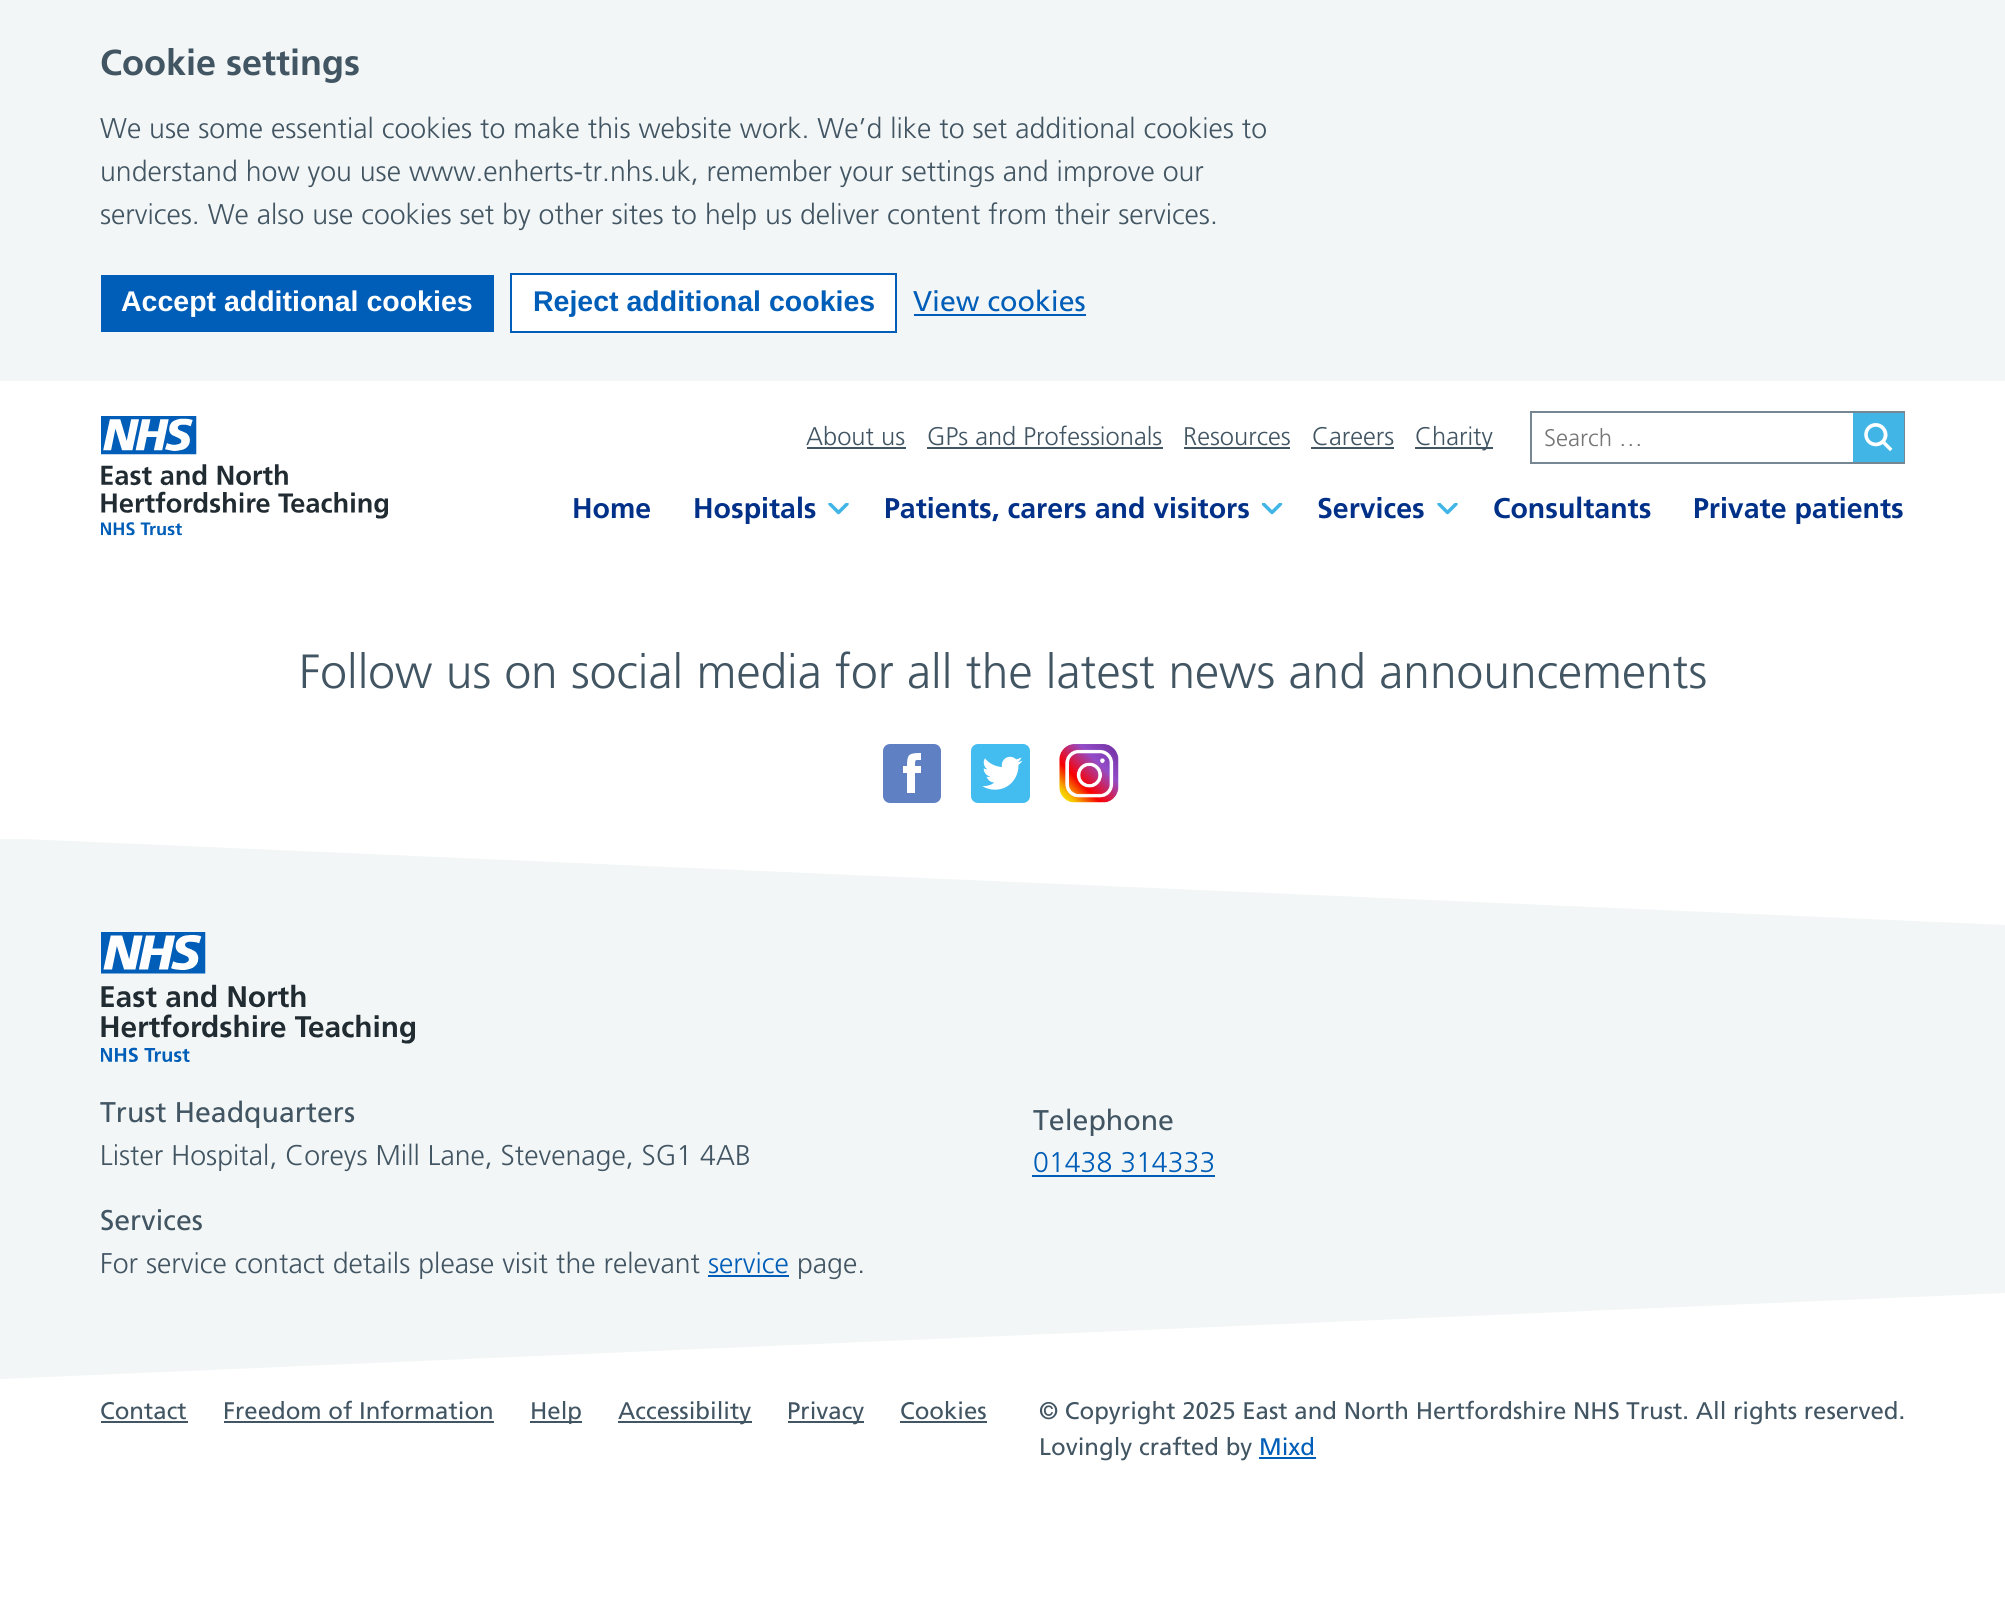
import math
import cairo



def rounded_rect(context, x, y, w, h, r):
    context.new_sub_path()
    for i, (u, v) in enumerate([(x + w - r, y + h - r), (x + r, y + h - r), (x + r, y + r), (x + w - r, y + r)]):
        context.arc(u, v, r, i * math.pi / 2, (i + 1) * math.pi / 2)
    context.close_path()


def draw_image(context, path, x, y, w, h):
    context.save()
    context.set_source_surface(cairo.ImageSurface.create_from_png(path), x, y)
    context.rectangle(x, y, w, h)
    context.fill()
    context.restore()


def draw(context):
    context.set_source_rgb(1, 1, 1)
    context.paint()
    context.set_source_rgb(243 / 255, 246 / 255, 246 / 255)
    context.rectangle(0, 0, 2005, 381)
    context.fill()
    context.set_source_rgb(0, 94 / 255, 184 / 255)
    context.rectangle(101, 275, 393, 57)
    context.fill()
    context.set_source_rgb(1, 1, 1)
    context.rectangle(511, 274, 385, 58)
    context.fill_preserve()
    context.set_source_rgb(0, 94 / 255, 184 / 255)
    context.stroke()
    context.rectangle(914, 314, 172, 2)
    context.fill()
    draw_image(context, "images/1.png", 101, 416, 287, 120)
    context.set_source_rgb(66 / 255, 85 / 255, 99 / 255)
    context.rectangle(807, 447, 99, 2)
    context.fill()
    context.rectangle(927, 447, 236, 2)
    context.fill()
    context.rectangle(1184, 447, 106, 2)
    context.fill()
    context.rectangle(1311, 447, 83, 2)
    context.fill()
    context.rectangle(1415, 447, 78, 2)
    context.fill()
    context.set_source_rgb(118 / 255, 134 / 255, 146 / 255)
    context.rectangle(1530, 411, 375, 2)
    context.fill()
    context.rectangle(1530, 462, 323, 2)
    context.fill()
    context.rectangle(1530, 411, 2, 53)
    context.fill()
    context.set_source_rgb(65 / 255, 182 / 255, 230 / 255)
    context.rectangle(1853, 413, 51, 49)
    context.fill()
    draw_image(context, "images/2.png", 1864, 423, 29, 29)
    context.set_source_rgb(118 / 255, 134 / 255, 146 / 255)
    context.rectangle(1904, 411, 1, 53)
    context.fill()
    context.rectangle(1853, 462, 52, 2)
    context.fill()
    context.save()
    context.rectangle(828, 503, 21, 12)
    context.clip()
    context.new_path()
    context.move_to(830, 504)
    context.line_to(838.5, 512.5)
    context.line_to(847, 504)
    context.set_source_rgb(65 / 255, 182 / 255, 230 / 255)
    context.set_line_width(3.5)
    context.set_line_cap(cairo.LineCap.ROUND)
    context.set_line_join(cairo.LineJoin.ROUND)
    context.stroke()
    context.restore()
    context.save()
    context.rectangle(1262, 503, 21, 12)
    context.clip()
    context.new_path()
    context.move_to(1263.5, 504)
    context.line_to(1272, 512.5)
    context.line_to(1280.5, 504)
    context.set_source_rgb(65 / 255, 182 / 255, 230 / 255)
    context.set_line_width(3.5)
    context.set_line_cap(cairo.LineCap.ROUND)
    context.set_line_join(cairo.LineJoin.ROUND)
    context.stroke()
    context.restore()
    context.save()
    context.rectangle(1437, 503, 21, 12)
    context.clip()
    context.new_path()
    context.move_to(1439, 504)
    context.line_to(1447.5, 512.5)
    context.line_to(1456, 504)
    context.set_source_rgb(65 / 255, 182 / 255, 230 / 255)
    context.set_line_width(3.5)
    context.set_line_cap(cairo.LineCap.ROUND)
    context.set_line_join(cairo.LineJoin.ROUND)
    context.stroke()
    context.restore()
    context.set_source_rgb(95 / 255, 128 / 255, 195 / 255)
    rounded_rect(context, 883, 744, 58, 59, 7)
    context.fill()
    context.set_source_rgb(1, 1, 1)
    context.set_fill_rule(cairo.FillRule.EVEN_ODD)
    context.new_path()
    context.move_to(921, 773)
    context.line_to(915, 773)
    context.line_to(915, 793)
    context.line_to(907, 793)
    context.line_to(907, 773)
    context.line_to(903, 773)
    context.line_to(903, 766)
    context.line_to(907, 766)
    context.curve_to(907, 754, 909, 753, 921, 753)
    context.line_to(921, 760)
    context.curve_to(915, 760, 915, 759, 915, 766)
    context.line_to(921, 766)
    context.close_path()
    context.fill()
    draw_image(context, "images/3.png", 971, 744, 59, 59)
    draw_image(context, "images/4.png", 1059, 744, 60, 59)
    context.set_source_rgb(243 / 255, 246 / 255, 246 / 255)
    context.rectangle(0, 839, 2005, 540)
    context.fill()
    context.set_source_rgb(1, 1, 1)
    context.set_fill_rule(cairo.FillRule.WINDING)
    context.new_path()
    context.move_to(0, 1379)
    context.line_to(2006, 1379)
    context.line_to(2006, 1293)
    context.close_path()
    context.fill()
    context.save()
    context.rectangle(0, 839, 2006, 91)
    context.clip()
    context.new_path()
    context.move_to(0, 838)
    context.line_to(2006, 838)
    context.line_to(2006, 925)
    context.close_path()
    context.fill()
    context.restore()
    draw_image(context, "images/5.png", 101, 932, 314, 130)
    context.set_source_rgb(0, 94 / 255, 184 / 255)
    context.rectangle(1032, 1175, 183, 2)
    context.fill()
    context.rectangle(708, 1275, 81, 2)
    context.fill()
    context.set_source_rgb(66 / 255, 85 / 255, 99 / 255)
    context.rectangle(101, 1421, 87, 2)
    context.fill()
    context.rectangle(224, 1421, 270, 2)
    context.fill()
    context.rectangle(530, 1421, 52, 2)
    context.fill()
    context.rectangle(618, 1421, 134, 2)
    context.fill()
    context.rectangle(788, 1421, 76, 2)
    context.fill()
    context.rectangle(900, 1421, 87, 2)
    context.fill()
    context.set_source_rgb(0, 94 / 255, 184 / 255)
    context.rectangle(1259, 1457, 57, 2)
    context.fill()
    context.select_font_face("Frutiger", cairo.FontSlant.NORMAL, cairo.FontWeight.BOLD)
    context.set_font_size(36)
    context.set_source_rgb(66 / 255, 85 / 255, 99 / 255)
    context.move_to(100, 75)
    context.show_text("Cookie settings")
    context.select_font_face("Frutiger Light")
    context.set_font_size(28.5)
    context.move_to(100, 138)
    context.show_text("We use some essential cookies to make this website work. We’d like to set additional cookies to")
    context.move_to(100, 181)
    context.show_text("understand how you use www.enherts-tr.nhs.uk, remember your settings and improve our")
    context.move_to(100, 224)
    context.show_text("services. We also use cookies set by other sites to help us deliver content from their services.")
    context.select_font_face("Liberation Sans", cairo.FontSlant.NORMAL, cairo.FontWeight.BOLD)
    context.set_source_rgb(1, 1, 1)
    context.move_to(121, 311)
    context.show_text("Accept additional cookies")
    context.set_source_rgb(0, 94 / 255, 184 / 255)
    context.move_to(533, 311)
    context.show_text("Reject additional cookies")
    context.select_font_face("Frutiger")
    context.move_to(913, 311)
    context.show_text("View cookies")
    context.select_font_face("Frutiger Light")
    context.set_font_size(25.5)
    context.set_source_rgb(66 / 255, 85 / 255, 99 / 255)
    context.move_to(806, 445)
    context.show_text("About us")
    context.move_to(927, 445)
    context.show_text("GPs and Professionals")
    context.move_to(1183, 445)
    context.show_text("Resources")
    context.move_to(1312, 445)
    context.show_text("Careers")
    context.move_to(1415, 445)
    context.show_text("Charity")
    context.set_font_size(24)
    context.set_source_rgb(117 / 255, 117 / 255, 117 / 255)
    context.move_to(1544, 446)
    context.show_text("Search …")
    context.select_font_face("Frutiger", cairo.FontSlant.NORMAL, cairo.FontWeight.BOLD)
    context.set_font_size(28.5)
    context.set_source_rgb(0, 48 / 255, 135 / 255)
    context.move_to(572, 518)
    context.show_text("Home")
    context.move_to(693, 518)
    context.show_text("Hospitals")
    context.move_to(884, 518)
    context.show_text("Patients, carers and visitors")
    context.move_to(1317, 518)
    context.show_text("Services")
    context.move_to(1493, 518)
    context.show_text("Consultants")
    context.move_to(1693, 518)
    context.show_text("Private patients")
    context.select_font_face("Frutiger Light")
    context.set_font_size(48)
    context.set_source_rgb(66 / 255, 85 / 255, 99 / 255)
    context.move_to(299, 688)
    context.show_text("Follow us on social media for all the latest news and announcements")
    context.select_font_face("Frutiger")
    context.set_font_size(28.5)
    context.move_to(100, 1122)
    context.show_text("Trust Headquarters")
    context.select_font_face("Frutiger Light")
    context.move_to(100, 1165)
    context.show_text("Lister Hospital, Coreys Mill Lane, Stevenage, SG1 4AB")
    context.select_font_face("Frutiger")
    context.move_to(1033, 1130)
    context.show_text("Telephone")
    context.select_font_face("Frutiger Light")
    context.set_source_rgb(0, 94 / 255, 184 / 255)
    context.move_to(1033, 1172)
    context.show_text("01438 314333")
    context.select_font_face("Frutiger")
    context.set_source_rgb(66 / 255, 85 / 255, 99 / 255)
    context.move_to(100, 1230)
    context.show_text("Services")
    context.select_font_face("Frutiger Light")
    context.move_to(100, 1273)
    context.show_text("For service contact details please visit the relevant")
    context.set_source_rgb(0, 94 / 255, 184 / 255)
    context.move_to(708, 1273)
    context.show_text("service")
    context.set_source_rgb(66 / 255, 85 / 255, 99 / 255)
    context.move_to(797, 1273)
    context.show_text("page.")
    context.select_font_face("Frutiger")
    context.set_font_size(24)
    context.move_to(100, 1419)
    context.show_text("Contact")
    context.move_to(223, 1419)
    context.show_text("Freedom of Information")
    context.move_to(530, 1419)
    context.show_text("Help")
    context.move_to(618, 1419)
    context.show_text("Accessibility")
    context.move_to(787, 1419)
    context.show_text("Privacy")
    context.move_to(900, 1419)
    context.show_text("Cookies")
    context.move_to(1039, 1419)
    context.show_text("© Copyright 2025 East and North Hertfordshire NHS Trust. All rights reserved.")
    context.move_to(1039, 1455)
    context.show_text("Lovingly crafted by")
    context.set_source_rgb(0, 94 / 255, 184 / 255)
    context.move_to(1259, 1455)
    context.show_text("Mixd")


surface = cairo.ImageSurface(cairo.Format.RGB24, 2005, 1618)
context = cairo.Context(surface)
options = cairo.FontOptions()
options.set_hint_metrics(cairo.HintMetrics.OFF)
options.set_hint_style(cairo.HintStyle.NONE)
context.set_font_options(options)
context.set_miter_limit(4)
draw(context)
surface.write_to_png("out.png")
